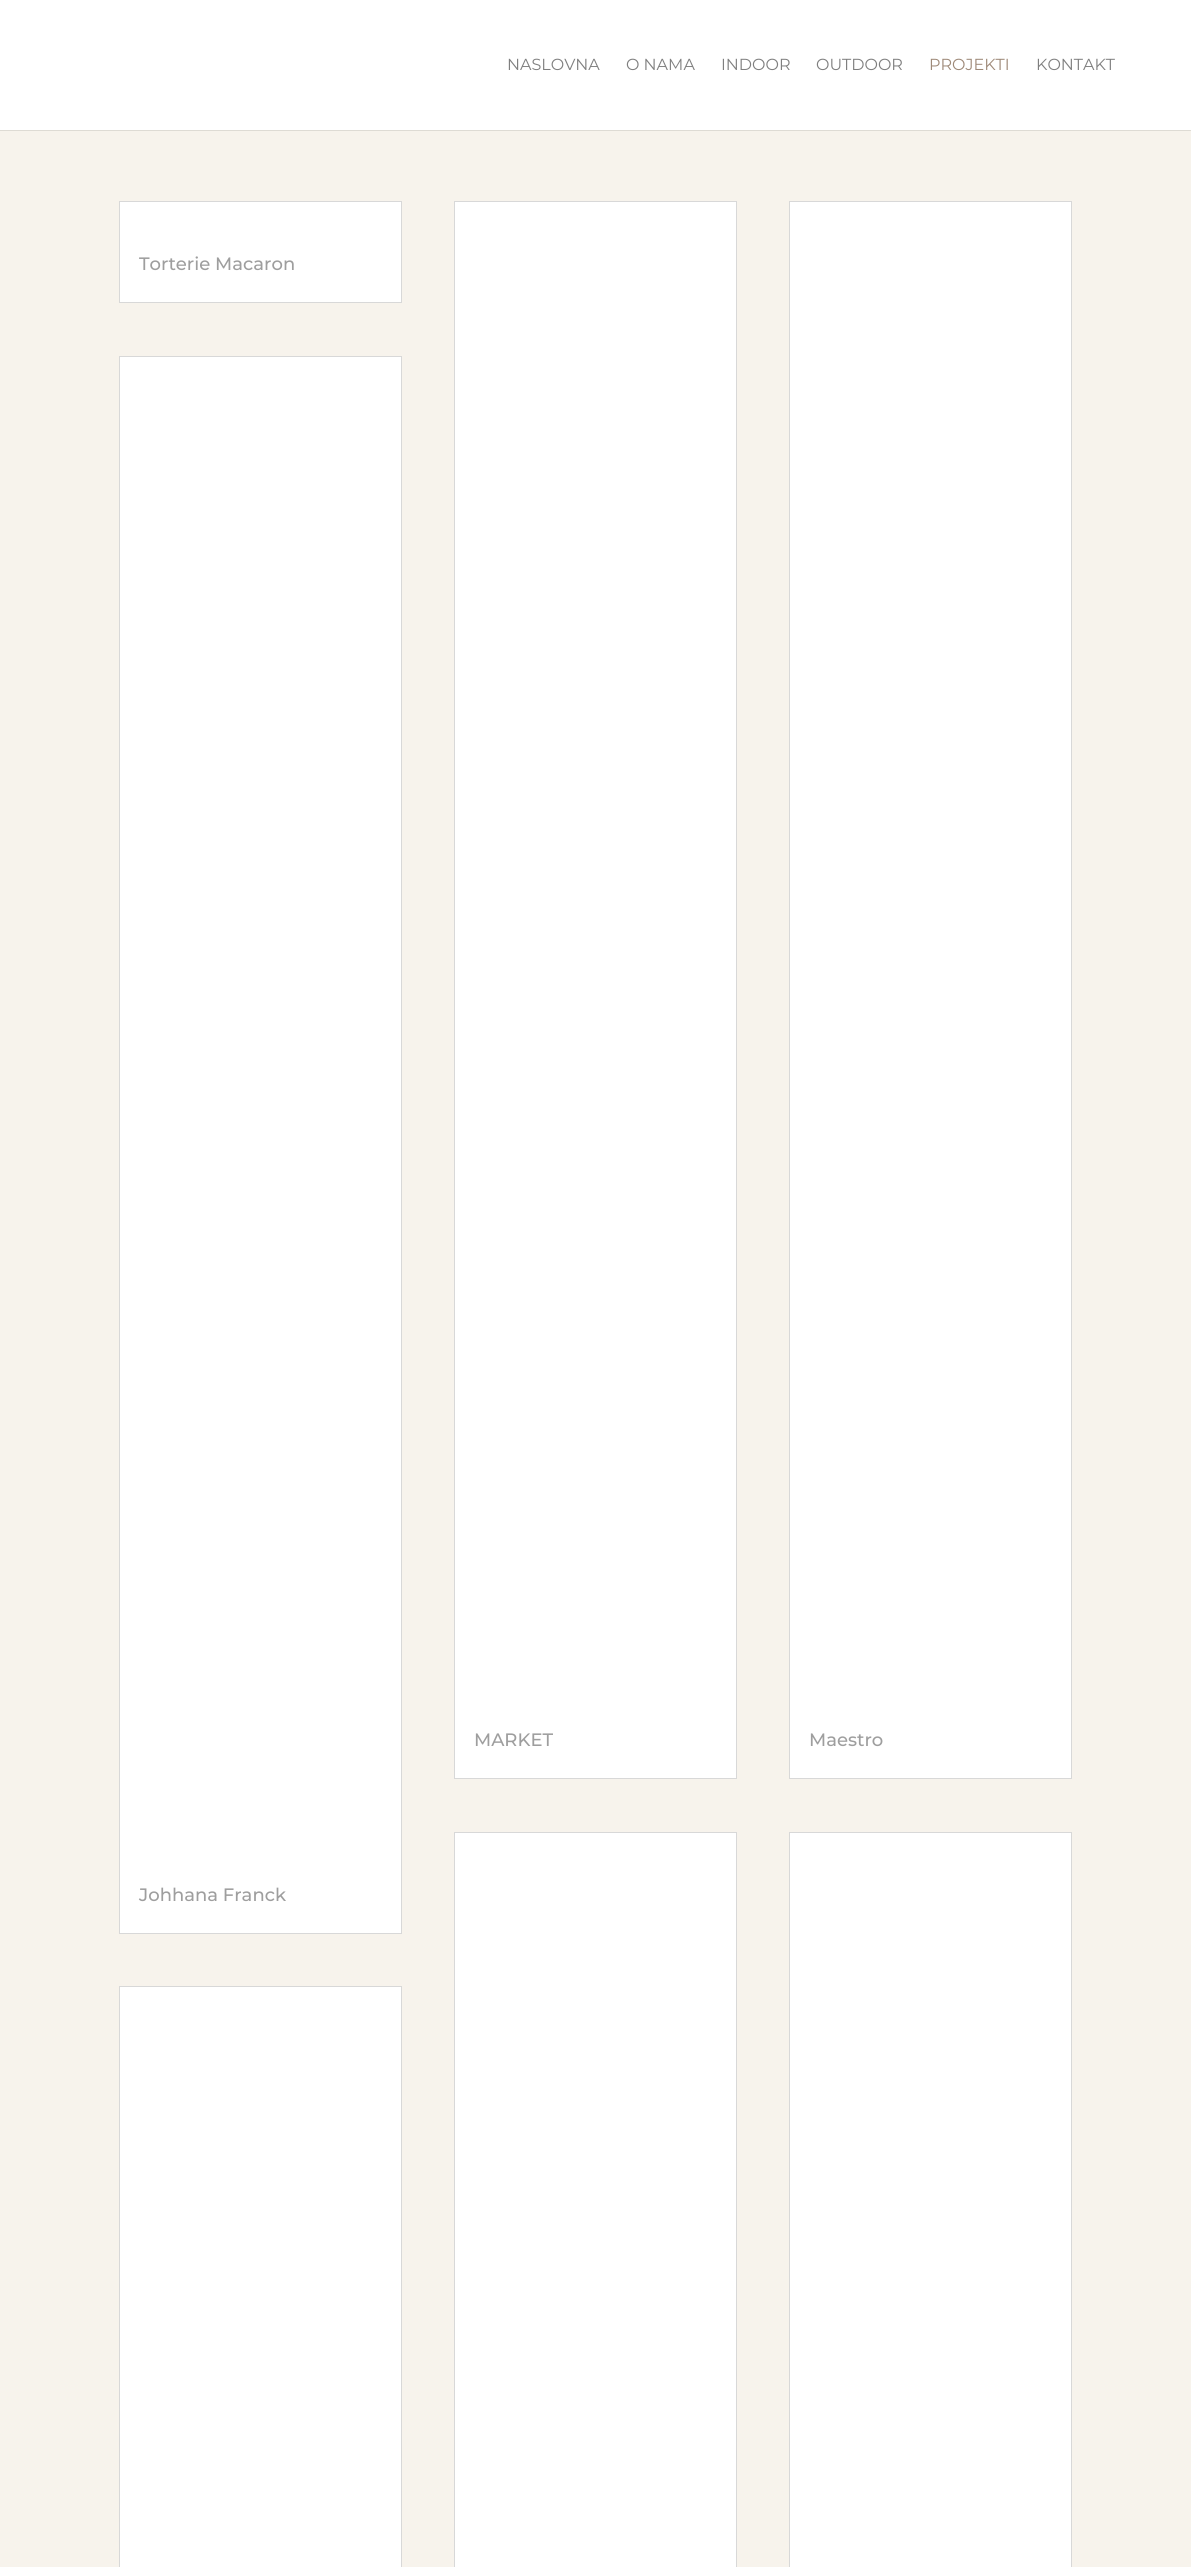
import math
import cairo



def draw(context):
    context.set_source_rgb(1, 1, 1)
    context.paint()
    context.set_source_rgb(222 / 255, 219 / 255, 212 / 255)
    context.rectangle(0, 130, 1191, 1)
    context.fill()
    context.set_source_rgb(247 / 255, 243 / 255, 236 / 255)
    context.rectangle(0, 131, 1191, 2436)
    context.fill()
    context.set_source_rgb(1, 1, 1)
    context.rectangle(119.5, 201.5, 282, 101)
    context.fill_preserve()
    context.set_source_rgb(216 / 255, 216 / 255, 216 / 255)
    context.set_line_width(1)
    context.stroke()
    context.set_source_rgb(1, 1, 1)
    context.rectangle(119.5, 356.5, 282, 1577)
    context.fill_preserve()
    context.set_source_rgb(216 / 255, 216 / 255, 216 / 255)
    context.stroke()
    context.set_source_rgb(1, 1, 1)
    context.rectangle(119.5, 1986.5, 282, 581)
    context.fill_preserve()
    context.set_source_rgb(216 / 255, 216 / 255, 216 / 255)
    context.stroke()
    context.set_source_rgb(1, 1, 1)
    context.rectangle(454.5, 201.5, 282, 1577)
    context.fill_preserve()
    context.set_source_rgb(216 / 255, 216 / 255, 216 / 255)
    context.stroke()
    context.set_source_rgb(1, 1, 1)
    context.rectangle(454.5, 1832.5, 282, 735)
    context.fill_preserve()
    context.set_source_rgb(216 / 255, 216 / 255, 216 / 255)
    context.stroke()
    context.set_source_rgb(1, 1, 1)
    context.rectangle(789.5, 201.5, 282, 1577)
    context.fill_preserve()
    context.set_source_rgb(216 / 255, 216 / 255, 216 / 255)
    context.stroke()
    context.set_source_rgb(1, 1, 1)
    context.rectangle(789.5, 1832.5, 282, 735)
    context.fill_preserve()
    context.set_source_rgb(216 / 255, 216 / 255, 216 / 255)
    context.stroke()
    context.select_font_face("Montserrat")
    context.set_font_size(16)
    context.set_source_rgb(127 / 255, 127 / 255, 127 / 255)
    context.move_to(507, 70)
    context.show_text("NASLOVNA")
    context.move_to(626, 70)
    context.show_text("O NAMA")
    context.move_to(721, 70)
    context.show_text("INDOOR")
    context.move_to(816, 70)
    context.show_text("OUTDOOR")
    context.set_source_rgb(158 / 255, 137 / 255, 120 / 255)
    context.move_to(929, 70)
    context.show_text("PROJEKTI")
    context.set_source_rgb(127 / 255, 127 / 255, 127 / 255)
    context.move_to(1036, 70)
    context.show_text("KONTAKT")
    context.select_font_face("Montserrat Medium")
    context.set_font_size(18)
    context.set_source_rgb(158 / 255, 158 / 255, 158 / 255)
    context.move_to(139, 270)
    context.show_text("Torterie Macaron")
    context.move_to(139, 1901)
    context.show_text("Johhana Franck")
    context.move_to(474, 1746)
    context.show_text("MARKET")
    context.move_to(809, 1746)
    context.show_text("Maestro")


surface = cairo.ImageSurface(cairo.Format.RGB24, 1191, 2567)
context = cairo.Context(surface)
options = cairo.FontOptions()
options.set_hint_metrics(cairo.HintMetrics.OFF)
options.set_hint_style(cairo.HintStyle.NONE)
context.set_font_options(options)
context.set_miter_limit(4)
draw(context)
surface.write_to_png("out.png")
